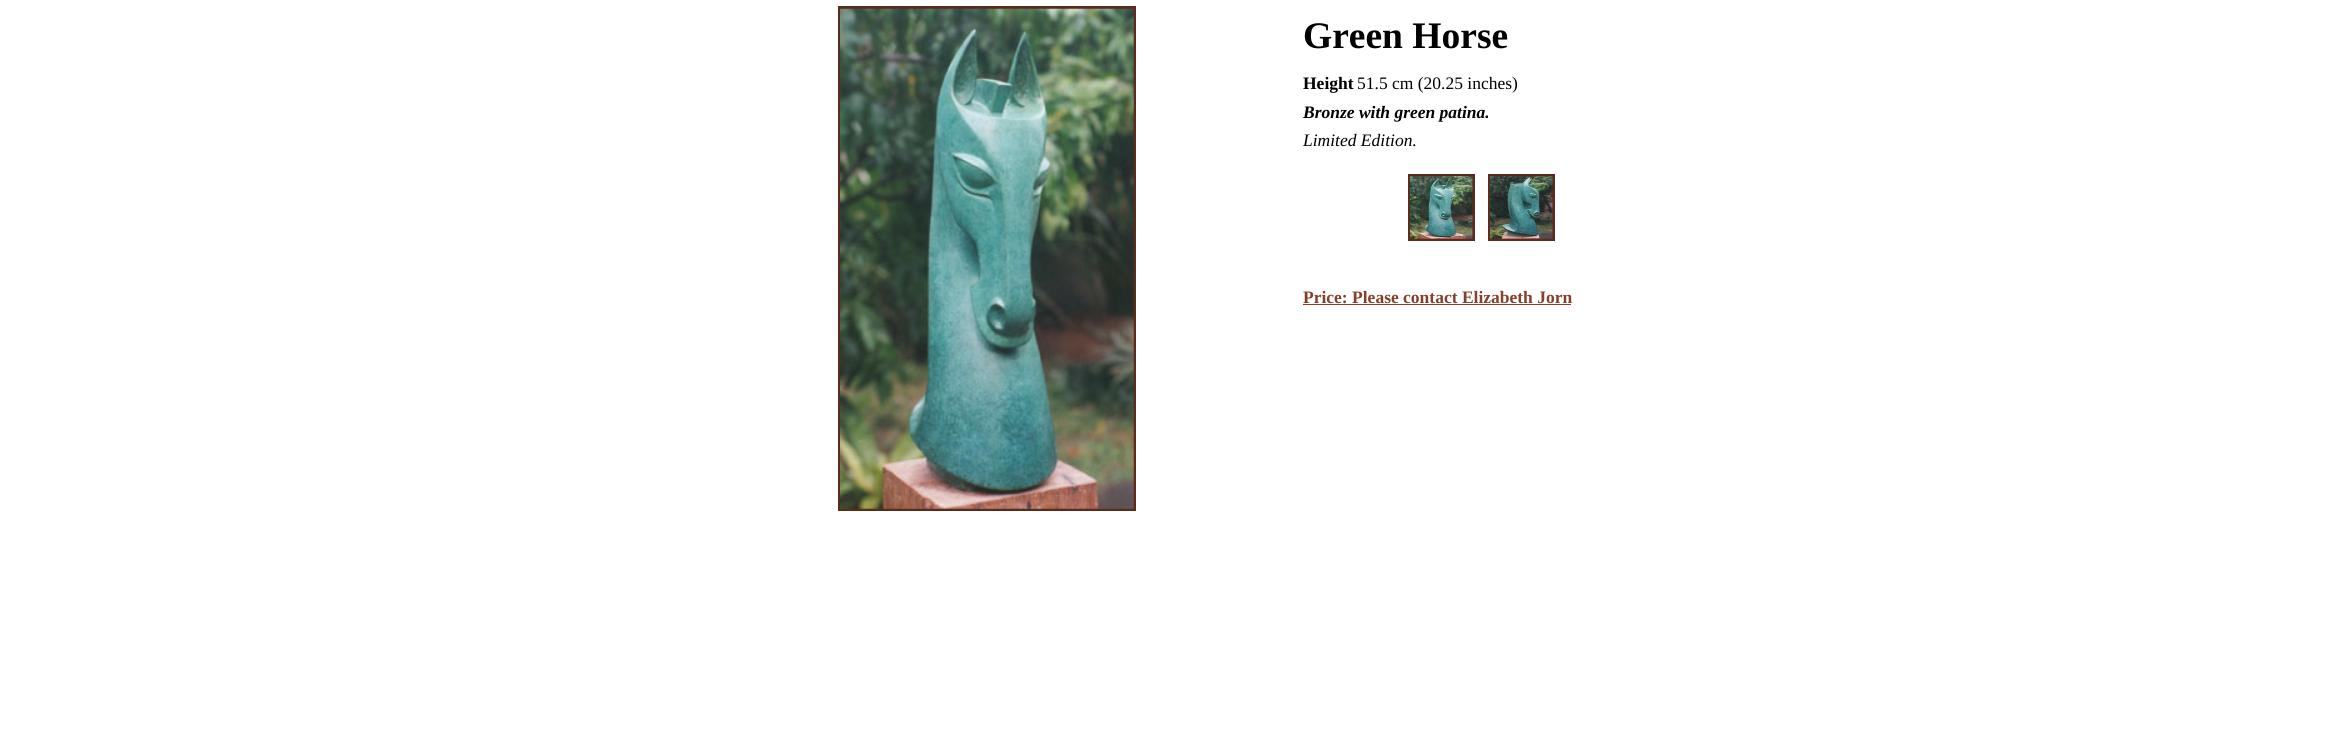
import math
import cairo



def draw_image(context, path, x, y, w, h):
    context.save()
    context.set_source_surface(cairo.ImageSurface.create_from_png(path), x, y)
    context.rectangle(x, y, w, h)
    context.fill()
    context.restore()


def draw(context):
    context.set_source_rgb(1, 1, 1)
    context.paint()
    context.rectangle(839.5, 7.5, 295, 502)
    context.set_source_rgb(91 / 255, 44 / 255, 30 / 255)
    context.set_line_width(3)
    context.stroke()
    draw_image(context, "images/1.png", 840, 8, 294, 501)
    context.rectangle(1409.5, 175.5, 64, 64)
    context.stroke()
    context.rectangle(1489.5, 175.5, 64, 64)
    context.stroke()
    draw_image(context, "images/2.png", 1410, 176, 63, 63)
    draw_image(context, "images/3.png", 1490, 176, 63, 63)
    context.set_source_rgb(133 / 255, 63 / 255, 43 / 255)
    context.rectangle(1303, 304, 268, 1)
    context.fill()
    context.select_font_face("Liberation Serif", cairo.FontSlant.NORMAL, cairo.FontWeight.BOLD)
    context.set_font_size(37.5)
    context.set_source_rgb(0, 0, 0)
    context.move_to(1303, 48)
    context.show_text("Green Horse")
    context.set_font_size(17.5)
    context.move_to(1303, 89)
    context.show_text("Height")
    context.select_font_face("Liberation Serif")
    context.move_to(1357, 89)
    context.show_text("51.5 cm (20.25 inches)")
    context.select_font_face("Liberation Serif", cairo.FontSlant.ITALIC, cairo.FontWeight.BOLD)
    context.move_to(1303, 118)
    context.show_text("Bronze with green patina.")
    context.select_font_face("Liberation Serif", cairo.FontSlant.ITALIC)
    context.move_to(1303, 146)
    context.show_text("Limited Edition.")
    context.select_font_face("Liberation Serif", cairo.FontSlant.NORMAL, cairo.FontWeight.BOLD)
    context.set_source_rgb(133 / 255, 63 / 255, 43 / 255)
    context.move_to(1303, 303)
    context.show_text("Price: Please contact Elizabeth Jorn")


surface = cairo.ImageSurface(cairo.Format.RGB24, 2342, 749)
context = cairo.Context(surface)
options = cairo.FontOptions()
options.set_hint_metrics(cairo.HintMetrics.OFF)
options.set_hint_style(cairo.HintStyle.NONE)
context.set_font_options(options)
context.set_miter_limit(4)
draw(context)
surface.write_to_png("out.png")
